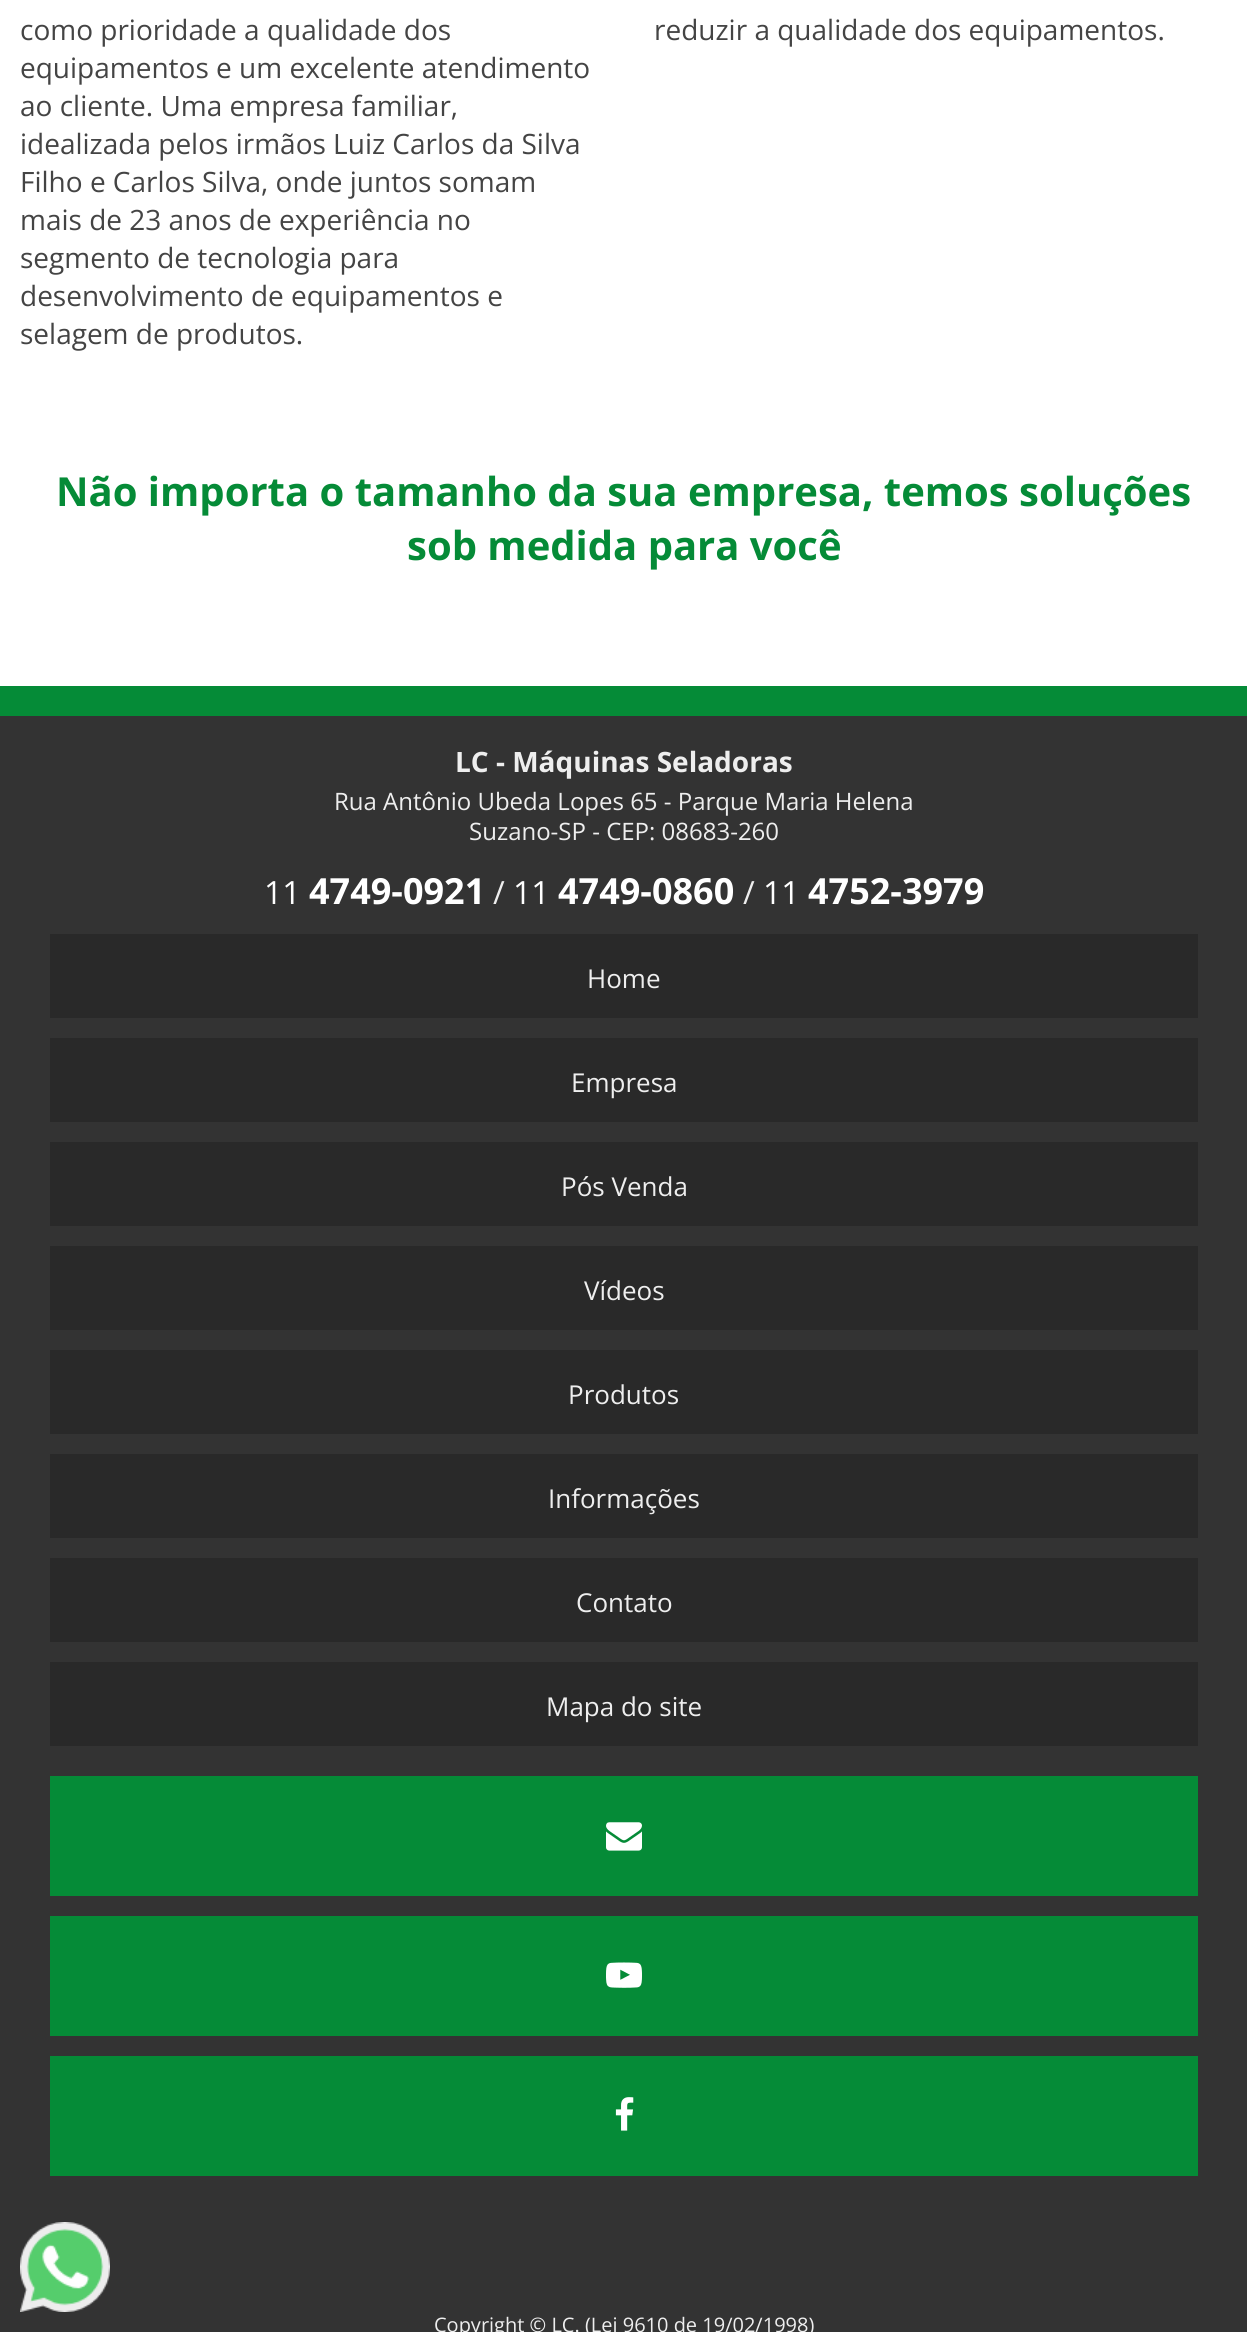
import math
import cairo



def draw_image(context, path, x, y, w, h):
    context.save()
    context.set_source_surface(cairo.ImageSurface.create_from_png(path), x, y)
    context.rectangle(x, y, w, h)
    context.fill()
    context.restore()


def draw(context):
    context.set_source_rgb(1, 1, 1)
    context.paint()
    context.set_source_rgb(51 / 255, 51 / 255, 51 / 255)
    context.rectangle(0, 716, 1247, 1616)
    context.fill()
    context.set_source_rgb(5 / 255, 139 / 255, 55 / 255)
    context.rectangle(0, 686, 1247, 30)
    context.fill()
    context.set_source_rgb(41 / 255, 41 / 255, 41 / 255)
    context.rectangle(50, 934, 1148, 84)
    context.fill()
    context.rectangle(50, 1038, 1148, 84)
    context.fill()
    context.rectangle(50, 1142, 1148, 84)
    context.fill()
    context.rectangle(50, 1246, 1148, 84)
    context.fill()
    context.rectangle(50, 1350, 1148, 84)
    context.fill()
    context.rectangle(50, 1454, 1148, 84)
    context.fill()
    context.rectangle(50, 1558, 1148, 84)
    context.fill()
    context.rectangle(50, 1662, 1148, 84)
    context.fill()
    context.set_source_rgb(5 / 255, 139 / 255, 55 / 255)
    context.rectangle(50, 1776, 1148, 120)
    context.fill()
    draw_image(context, "images/1.png", 606, 1822, 36, 29)
    context.rectangle(50, 1916, 1148, 120)
    context.fill()
    draw_image(context, "images/2.png", 606, 1962, 36, 26)
    context.rectangle(50, 2056, 1148, 120)
    context.fill()
    draw_image(context, "images/3.png", 615, 2097, 19, 34)
    draw_image(context, "images/4.png", 20, 2222, 90, 90)
    context.select_font_face("Open Sans")
    context.set_font_size(28)
    context.set_source_rgb(68 / 255, 68 / 255, 68 / 255)
    context.move_to(20, 40)
    context.show_text("como prioridade a qualidade dos")
    context.move_to(20, 78)
    context.show_text("equipamentos e um excelente atendimento")
    context.move_to(20, 116)
    context.show_text("ao cliente. Uma empresa familiar,")
    context.move_to(20, 154)
    context.show_text("idealizada pelos irmãos Luiz Carlos da Silva")
    context.move_to(20, 192)
    context.show_text("Filho e Carlos Silva, onde juntos somam")
    context.move_to(20, 230)
    context.show_text("mais de 23 anos de experiência no")
    context.move_to(20, 268)
    context.show_text("segmento de tecnologia para")
    context.move_to(20, 306)
    context.show_text("desenvolvimento de equipamentos e")
    context.move_to(20, 344)
    context.show_text("selagem de produtos.")
    context.move_to(654, 40)
    context.show_text("reduzir a qualidade dos equipamentos.")
    context.select_font_face("Open Sans", cairo.FontSlant.NORMAL, cairo.FontWeight.BOLD)
    context.set_font_size(40)
    context.set_source_rgb(5 / 255, 139 / 255, 55 / 255)
    context.move_to(56, 506)
    context.show_text("Não importa o tamanho da sua empresa, temos soluções")
    context.move_to(407, 560)
    context.show_text("sob medida para você")
    context.set_font_size(28)
    context.set_source_rgb(238 / 255, 238 / 255, 238 / 255)
    context.move_to(455, 772)
    context.show_text("LC - Máquinas Seladoras")
    context.select_font_face("Open Sans")
    context.set_font_size(24)
    context.move_to(334, 810)
    context.show_text("Rua Antônio Ubeda Lopes 65 - Parque Maria Helena")
    context.move_to(469, 840)
    context.show_text("Suzano-SP - CEP: 08683-260")
    context.set_font_size(32)
    context.set_source_rgb(1, 1, 1)
    context.move_to(264, 904)
    context.show_text("11")
    context.select_font_face("Open Sans", cairo.FontSlant.NORMAL, cairo.FontWeight.BOLD)
    context.set_font_size(36)
    context.move_to(309, 904)
    context.show_text("4749-0921")
    context.select_font_face("Open Sans")
    context.set_font_size(32)
    context.set_source_rgb(238 / 255, 238 / 255, 238 / 255)
    context.move_to(493, 904)
    context.show_text("/")
    context.set_source_rgb(1, 1, 1)
    context.move_to(513, 904)
    context.show_text("11")
    context.select_font_face("Open Sans", cairo.FontSlant.NORMAL, cairo.FontWeight.BOLD)
    context.set_font_size(36)
    context.move_to(558, 904)
    context.show_text("4749-0860")
    context.select_font_face("Open Sans")
    context.set_font_size(32)
    context.set_source_rgb(238 / 255, 238 / 255, 238 / 255)
    context.move_to(743, 904)
    context.show_text("/")
    context.set_source_rgb(1, 1, 1)
    context.move_to(763, 904)
    context.show_text("11")
    context.select_font_face("Open Sans", cairo.FontSlant.NORMAL, cairo.FontWeight.BOLD)
    context.set_font_size(36)
    context.move_to(808, 904)
    context.show_text("4752-3979")
    context.select_font_face("Open Sans")
    context.set_font_size(26)
    context.set_source_rgb(238 / 255, 238 / 255, 238 / 255)
    context.move_to(587, 988)
    context.show_text("Home")
    context.move_to(571, 1092)
    context.show_text("Empresa")
    context.move_to(561, 1196)
    context.show_text("Pós Venda")
    context.move_to(584, 1300)
    context.show_text("Vídeos")
    context.move_to(568, 1404)
    context.show_text("Produtos")
    context.move_to(548, 1508)
    context.show_text("Informações")
    context.move_to(576, 1612)
    context.show_text("Contato")
    context.move_to(546, 1716)
    context.show_text("Mapa do site")
    context.set_font_size(20)
    context.move_to(434, 2332)
    context.show_text("Copyright © LC. (Lei 9610 de 19/02/1998)")


surface = cairo.ImageSurface(cairo.Format.RGB24, 1247, 2332)
context = cairo.Context(surface)
options = cairo.FontOptions()
options.set_hint_metrics(cairo.HintMetrics.OFF)
options.set_hint_style(cairo.HintStyle.NONE)
context.set_font_options(options)
context.set_miter_limit(4)
draw(context)
surface.write_to_png("out.png")
